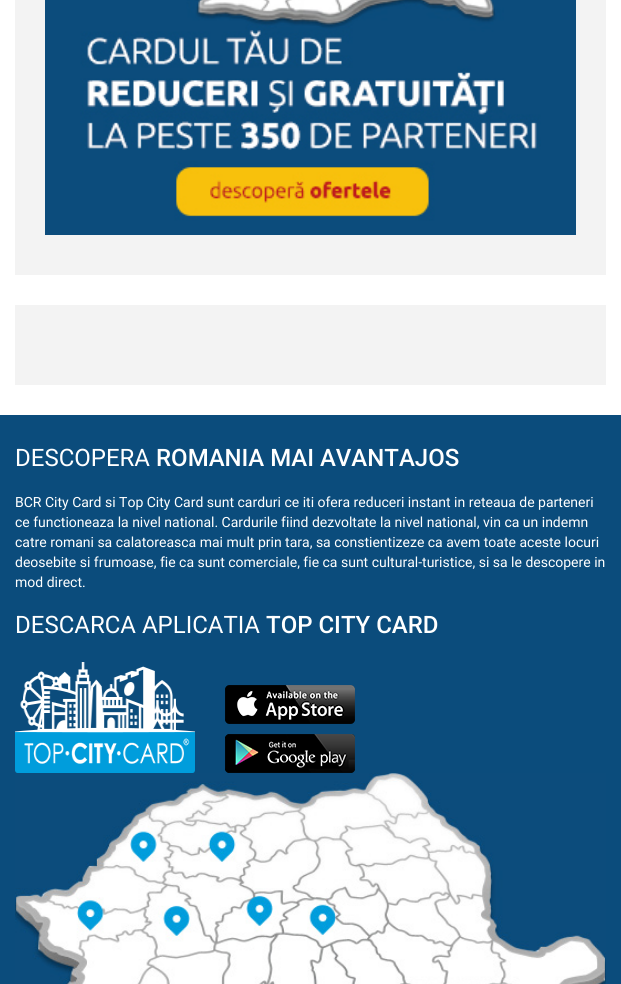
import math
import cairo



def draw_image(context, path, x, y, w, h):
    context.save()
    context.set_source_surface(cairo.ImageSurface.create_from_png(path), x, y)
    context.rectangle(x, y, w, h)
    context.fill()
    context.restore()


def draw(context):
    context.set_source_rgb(1, 1, 1)
    context.paint()
    context.set_source_rgb(243 / 255, 243 / 255, 243 / 255)
    context.rectangle(15, 0, 591, 275)
    context.fill()
    draw_image(context, "images/1.png", 45, 0, 531, 235)
    context.rectangle(15, 305, 591, 80)
    context.fill()
    context.set_source_rgb(11 / 255, 76 / 255, 124 / 255)
    context.rectangle(0, 415, 621, 569)
    context.fill()
    draw_image(context, "images/2.png", 15, 662, 180, 111)
    draw_image(context, "images/3.png", 225, 685, 130, 39)
    draw_image(context, "images/4.png", 225, 734, 130, 39)
    draw_image(context, "images/5.png", 15, 773, 591, 211)
    context.select_font_face("Roboto")
    context.set_font_size(24)
    context.set_source_rgb(1, 1, 1)
    context.move_to(15, 466)
    context.show_text("DESCOPERA")
    context.select_font_face("Roboto Medium")
    context.move_to(156, 466)
    context.show_text("ROMANIA MAI AVANTAJOS")
    context.select_font_face("Roboto")
    context.set_font_size(14)
    context.move_to(15, 507)
    context.show_text("BCR City Card si Top City Card sunt carduri ce iti ofera reduceri instant in reteaua de parteneri")
    context.move_to(15, 527)
    context.show_text("ce functioneaza la nivel national. Cardurile fiind dezvoltate la nivel national, vin ca un indemn")
    context.move_to(15, 547)
    context.show_text("catre romani sa calatoreasca mai mult prin tara, sa constientizeze ca avem toate aceste locuri")
    context.move_to(15, 567)
    context.show_text("deosebite si frumoase, fie ca sunt comerciale, fie ca sunt cultural-turistice, si sa le descopere in")
    context.move_to(15, 587)
    context.show_text("mod direct.")
    context.set_font_size(24)
    context.move_to(15, 633)
    context.show_text("DESCARCA APLICATIA")
    context.select_font_face("Roboto Medium")
    context.move_to(266, 633)
    context.show_text("TOP CITY CARD")


surface = cairo.ImageSurface(cairo.Format.RGB24, 621, 984)
context = cairo.Context(surface)
options = cairo.FontOptions()
options.set_hint_metrics(cairo.HintMetrics.OFF)
options.set_hint_style(cairo.HintStyle.NONE)
context.set_font_options(options)
context.set_miter_limit(4)
draw(context)
surface.write_to_png("out.png")
